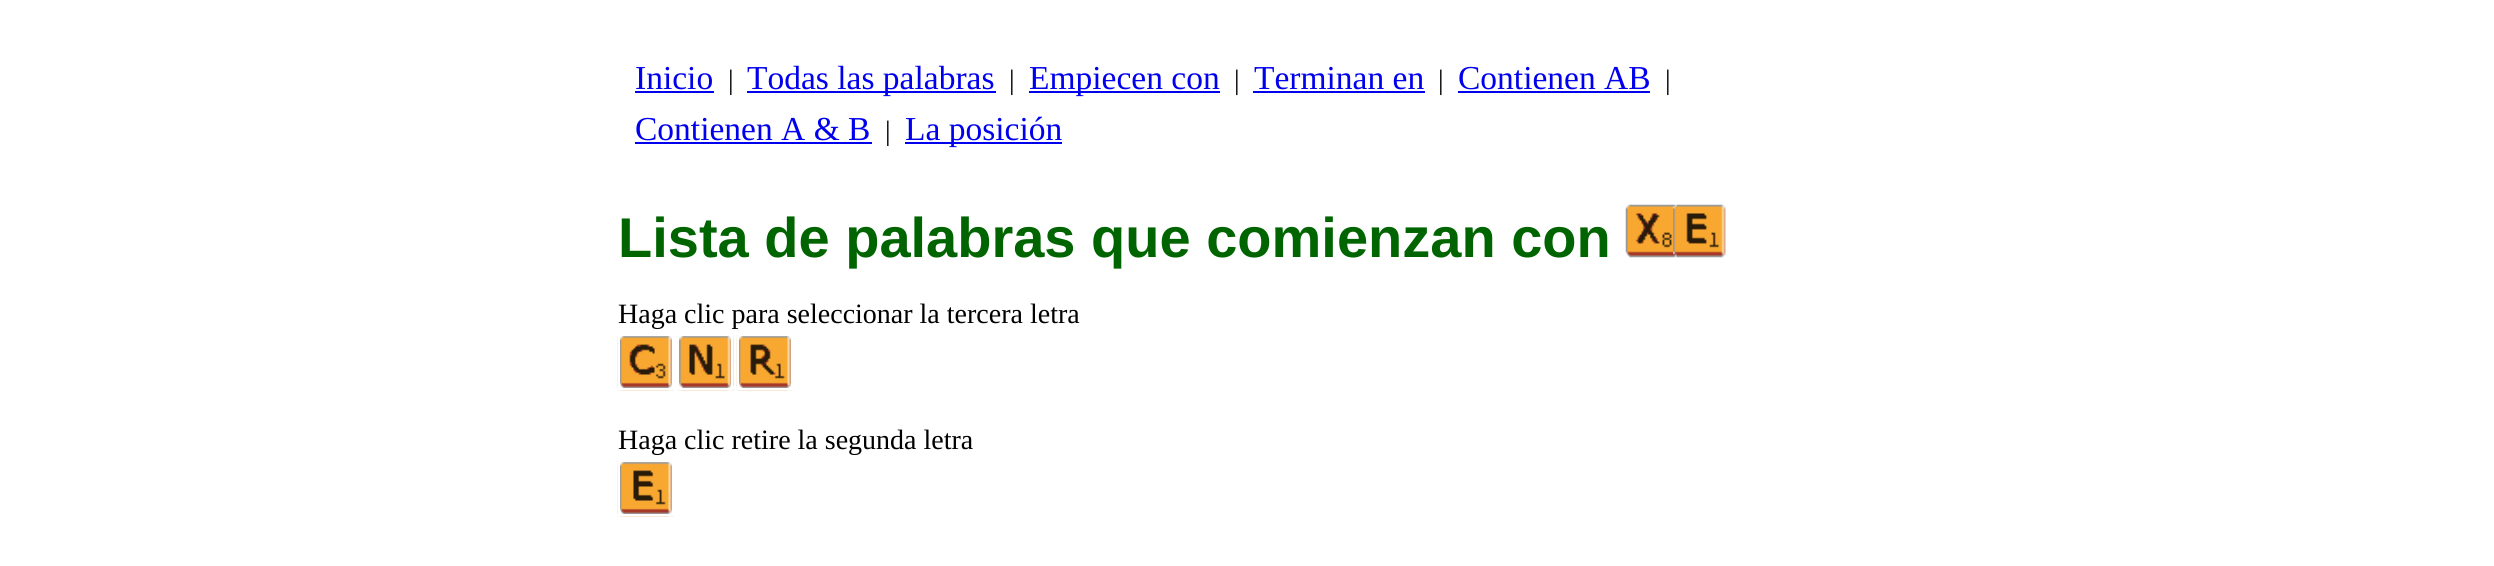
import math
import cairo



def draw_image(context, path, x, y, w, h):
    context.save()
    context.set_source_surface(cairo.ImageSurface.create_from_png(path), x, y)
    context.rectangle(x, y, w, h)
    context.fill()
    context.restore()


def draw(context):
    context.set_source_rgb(1, 1, 1)
    context.paint()
    context.set_source_rgb(0, 0, 238 / 255)
    context.rectangle(635, 91, 79, 2)
    context.fill()
    context.rectangle(747, 91, 249, 2)
    context.fill()
    context.rectangle(1029, 91, 191, 2)
    context.fill()
    context.rectangle(1253, 91, 172, 2)
    context.fill()
    context.rectangle(1458, 91, 192, 2)
    context.fill()
    context.rectangle(635, 142, 237, 2)
    context.fill()
    context.rectangle(905, 142, 157, 2)
    context.fill()
    draw_image(context, "images/1.png", 1625, 204, 48, 54)
    draw_image(context, "images/2.png", 1673, 204, 53, 54)
    draw_image(context, "images/3.png", 617, 334, 57, 57)
    context.rectangle(619, 335, 54, 54)
    context.set_source_rgb(1, 1, 1)
    context.stroke()
    draw_image(context, "images/4.png", 677, 334, 57, 57)
    context.rectangle(678, 335, 54, 54)
    context.stroke()
    draw_image(context, "images/5.png", 736, 334, 57, 57)
    context.rectangle(738, 335, 54, 54)
    context.stroke()
    draw_image(context, "images/6.png", 617, 460, 57, 57)
    context.rectangle(619, 461, 54, 54)
    context.stroke()
    context.select_font_face("Liberation Serif")
    context.set_font_size(33.5)
    context.set_source_rgb(0, 0, 238 / 255)
    context.move_to(635, 89)
    context.show_text("Inicio")
    context.set_font_size(28)
    context.set_source_rgb(0, 0, 0)
    context.move_to(728, 89)
    context.show_text("|")
    context.set_font_size(33.5)
    context.set_source_rgb(0, 0, 238 / 255)
    context.move_to(747, 89)
    context.show_text("Todas las palabras")
    context.set_font_size(28)
    context.set_source_rgb(0, 0, 0)
    context.move_to(1009, 89)
    context.show_text("|")
    context.set_font_size(33.5)
    context.set_source_rgb(0, 0, 238 / 255)
    context.move_to(1029, 89)
    context.show_text("Empiecen con")
    context.set_font_size(28)
    context.set_source_rgb(0, 0, 0)
    context.move_to(1234, 89)
    context.show_text("|")
    context.set_font_size(33.5)
    context.set_source_rgb(0, 0, 238 / 255)
    context.move_to(1254, 89)
    context.show_text("Terminan en")
    context.set_font_size(28)
    context.set_source_rgb(0, 0, 0)
    context.move_to(1438, 89)
    context.show_text("|")
    context.set_font_size(33.5)
    context.set_source_rgb(0, 0, 238 / 255)
    context.move_to(1458, 89)
    context.show_text("Contienen AB")
    context.set_font_size(28)
    context.set_source_rgb(0, 0, 0)
    context.move_to(1665, 89)
    context.show_text("|")
    context.set_font_size(33.5)
    context.set_source_rgb(0, 0, 238 / 255)
    context.move_to(635, 140)
    context.show_text("Contienen A & B")
    context.set_font_size(28)
    context.set_source_rgb(0, 0, 0)
    context.move_to(885, 140)
    context.show_text("|")
    context.set_font_size(33.5)
    context.set_source_rgb(0, 0, 238 / 255)
    context.move_to(905, 140)
    context.show_text("La posición")
    context.select_font_face("Liberation Sans", cairo.FontSlant.NORMAL, cairo.FontWeight.BOLD)
    context.set_font_size(56)
    context.set_source_rgb(0, 100 / 255, 0)
    context.move_to(618, 257)
    context.show_text("Lista de palabras que comienzan con")
    context.select_font_face("Liberation Serif")
    context.set_font_size(28)
    context.set_source_rgb(0, 0, 0)
    context.move_to(618, 323)
    context.show_text("Haga clic para seleccionar la tercera letra")
    context.move_to(618, 449)
    context.show_text("Haga clic retire la segunda letra")


surface = cairo.ImageSurface(cairo.Format.RGB24, 2494, 566)
context = cairo.Context(surface)
options = cairo.FontOptions()
options.set_hint_metrics(cairo.HintMetrics.OFF)
options.set_hint_style(cairo.HintStyle.NONE)
context.set_font_options(options)
context.set_miter_limit(4)
draw(context)
surface.write_to_png("out.png")
